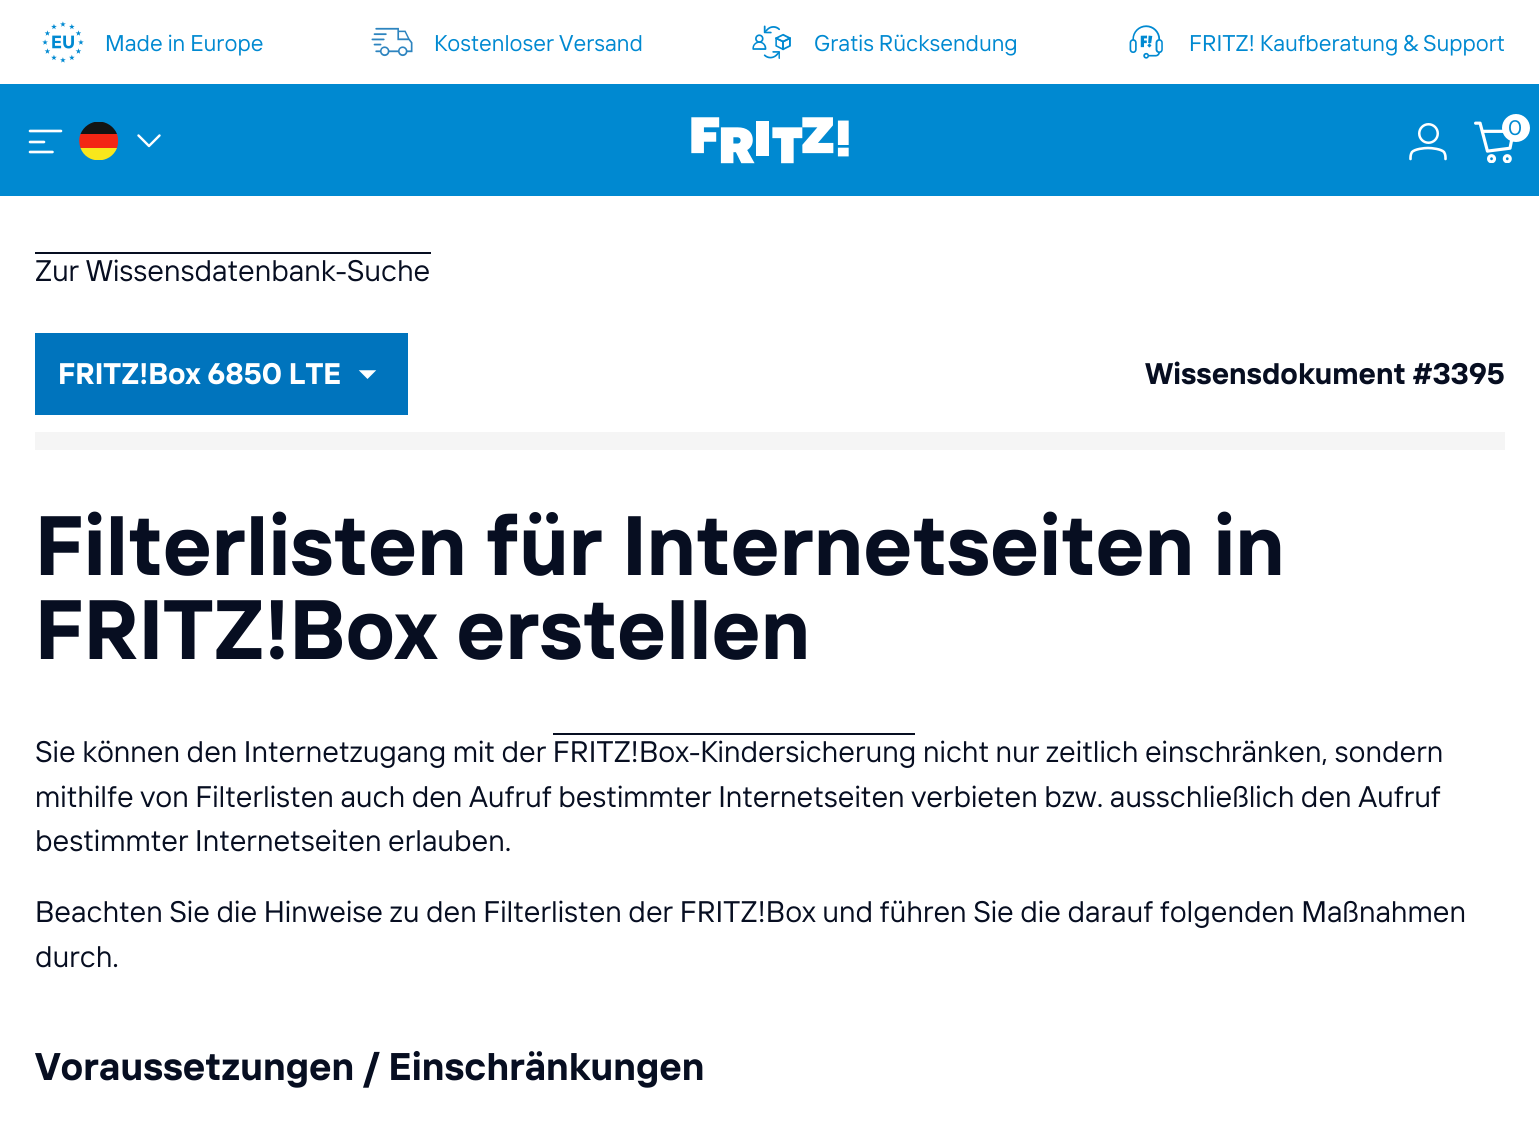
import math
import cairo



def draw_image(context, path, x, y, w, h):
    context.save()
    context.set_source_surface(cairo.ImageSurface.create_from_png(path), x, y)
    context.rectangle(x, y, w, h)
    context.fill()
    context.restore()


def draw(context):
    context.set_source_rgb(1, 1, 1)
    context.paint()
    draw_image(context, "images/1.png", 42, 21, 42, 42)
    draw_image(context, "images/2.png", 371, 27, 42, 30)
    draw_image(context, "images/3.png", 752, 25, 39, 34)
    draw_image(context, "images/4.png", 1129, 25, 34, 34)
    context.set_source_rgb(0, 137 / 255, 209 / 255)
    context.rectangle(0, 84, 1539, 112)
    context.fill()
    context.new_path()
    context.move_to(30, 131)
    context.line_to(61, 131)
    context.move_to(30, 142)
    context.line_to(44, 142)
    context.move_to(30, 152)
    context.line_to(52.5, 152)
    context.set_source_rgb(1, 1, 1)
    context.set_line_width(2.6)
    context.set_line_cap(cairo.LineCap.ROUND)
    context.stroke()
    context.set_source_rgb(243 / 255, 38 / 255, 20 / 255)
    context.new_path()
    context.move_to(117, 134)
    context.line_to(80.5, 134)
    context.curve_to(78.5, 138.5, 79, 144.5, 81, 149)
    context.line_to(116.5, 149)
    context.curve_to(118.5, 144.5, 118.5, 138.5, 117, 134)
    context.close_path()
    context.fill()
    context.save()
    context.rectangle(79, 122, 39, 38)
    context.clip()
    context.set_source_rgb(248 / 255, 231 / 255, 28 / 255)
    context.new_path()
    context.move_to(117, 148)
    context.line_to(80.5, 148)
    context.curve_to(86.5, 164.5, 110.5, 164.5, 117, 148)
    context.close_path()
    context.fill()
    context.set_source_rgb(19 / 255, 20 / 255, 19 / 255)
    context.new_path()
    context.move_to(98.5, 121.5)
    context.curve_to(106.5, 121.5, 114, 126.5, 117, 134)
    context.line_to(80.5, 134)
    context.curve_to(83.5, 126.5, 91, 121.5, 98.5, 121.5)
    context.close_path()
    context.fill()
    context.restore()
    context.new_path()
    context.move_to(138.5, 135.5)
    context.line_to(149, 146)
    context.line_to(159.5, 135.5)
    context.set_source_rgb(1, 1, 1)
    context.set_line_width(2.4)
    context.set_line_join(cairo.LineJoin.ROUND)
    context.stroke()
    draw_image(context, "images/5.png", 691, 117, 158, 47)
    context.arc(1428.5, 133.5, 9.25, 0, 2 * math.pi)
    context.set_line_width(2.5)
    context.set_line_cap(cairo.LineCap.BUTT)
    context.set_line_join(cairo.LineJoin.MITER)
    context.stroke()
    context.new_path()
    context.move_to(1428, 148)
    context.curve_to(1432, 148, 1441, 149, 1444, 152)
    context.curve_to(1445.5, 154.5, 1445.5, 156.5, 1445.5, 159)
    context.move_to(1428, 148)
    context.curve_to(1424, 148, 1415, 149, 1412, 152)
    context.curve_to(1410.5, 154.5, 1410.5, 156.5, 1410.5, 159)
    context.set_line_width(2.6)
    context.set_line_cap(cairo.LineCap.ROUND)
    context.stroke()
    draw_image(context, "images/6.png", 1474, 121, 39, 42)
    context.arc(1516, 128, 14, 0, 2 * math.pi)
    context.fill()
    context.set_source_rgb(7 / 255, 14 / 255, 33 / 255)
    context.rectangle(35, 252, 396, 2)
    context.fill()
    context.set_source_rgb(245 / 255, 245 / 255, 245 / 255)
    context.rectangle(35, 432, 1470, 18)
    context.fill()
    context.set_source_rgb(0, 116 / 255, 189 / 255)
    context.rectangle(35, 333, 373, 82)
    context.fill()
    draw_image(context, "images/7.png", 358, 370, 19, 9)
    context.set_source_rgb(7 / 255, 14 / 255, 33 / 255)
    context.rectangle(553, 733, 362, 2)
    context.fill()
    context.select_font_face("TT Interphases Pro")
    context.set_font_size(22.75)
    context.set_source_rgb(0, 137 / 255, 209 / 255)
    context.move_to(105, 51)
    context.show_text("Made in Europe")
    context.move_to(434, 51)
    context.show_text("Kostenloser Versand")
    context.move_to(814, 51)
    context.show_text("Gratis Rücksendung")
    context.move_to(1189, 51)
    context.show_text("FRITZ! Kaufberatung & Support")
    context.set_font_size(21)
    context.move_to(1508, 135)
    context.show_text("0")
    context.set_font_size(29.75)
    context.set_source_rgb(7 / 255, 14 / 255, 33 / 255)
    context.move_to(35, 281)
    context.show_text("Zur Wissensdatenbank-Suche")
    context.select_font_face("TT Interphases Pro", cairo.FontSlant.NORMAL, cairo.FontWeight.BOLD)
    context.set_source_rgb(1, 1, 1)
    context.move_to(58, 384)
    context.show_text("FRITZ!Box 6850 LTE")
    context.set_source_rgb(7 / 255, 14 / 255, 33 / 255)
    context.move_to(1145, 384)
    context.show_text("Wissensdokument #3395")
    context.set_font_size(84)
    context.move_to(35, 575)
    context.show_text("Filterlisten für Internetseiten in")
    context.move_to(35, 659)
    context.show_text("FRITZ!Box erstellen")
    context.select_font_face("TT Interphases Pro")
    context.set_font_size(29.75)
    context.move_to(35, 762)
    context.show_text("Sie können den Internetzugang mit der FRITZ!Box-Kindersicherung")
    context.move_to(923, 762)
    context.show_text("nicht nur zeitlich einschränken, sondern")
    context.move_to(35, 807)
    context.show_text("mithilfe von Filterlisten auch den Aufruf bestimmter Internetseiten verbieten bzw. ausschließlich den Aufruf")
    context.move_to(35, 851)
    context.show_text("bestimmter Internetseiten erlauben.")
    context.move_to(35, 922)
    context.show_text("Beachten Sie die Hinweise zu den Filterlisten der FRITZ!Box und führen Sie die darauf folgenden Maßnahmen")
    context.move_to(35, 967)
    context.show_text("durch.")
    context.select_font_face("TT Interphases Pro", cairo.FontSlant.NORMAL, cairo.FontWeight.BOLD)
    context.set_font_size(38.5)
    context.move_to(35, 1080)
    context.show_text("Voraussetzungen / Einschränkungen")


surface = cairo.ImageSurface(cairo.Format.RGB24, 1539, 1126)
context = cairo.Context(surface)
options = cairo.FontOptions()
options.set_hint_metrics(cairo.HintMetrics.OFF)
options.set_hint_style(cairo.HintStyle.NONE)
context.set_font_options(options)
context.set_miter_limit(4)
draw(context)
surface.write_to_png("out.png")
